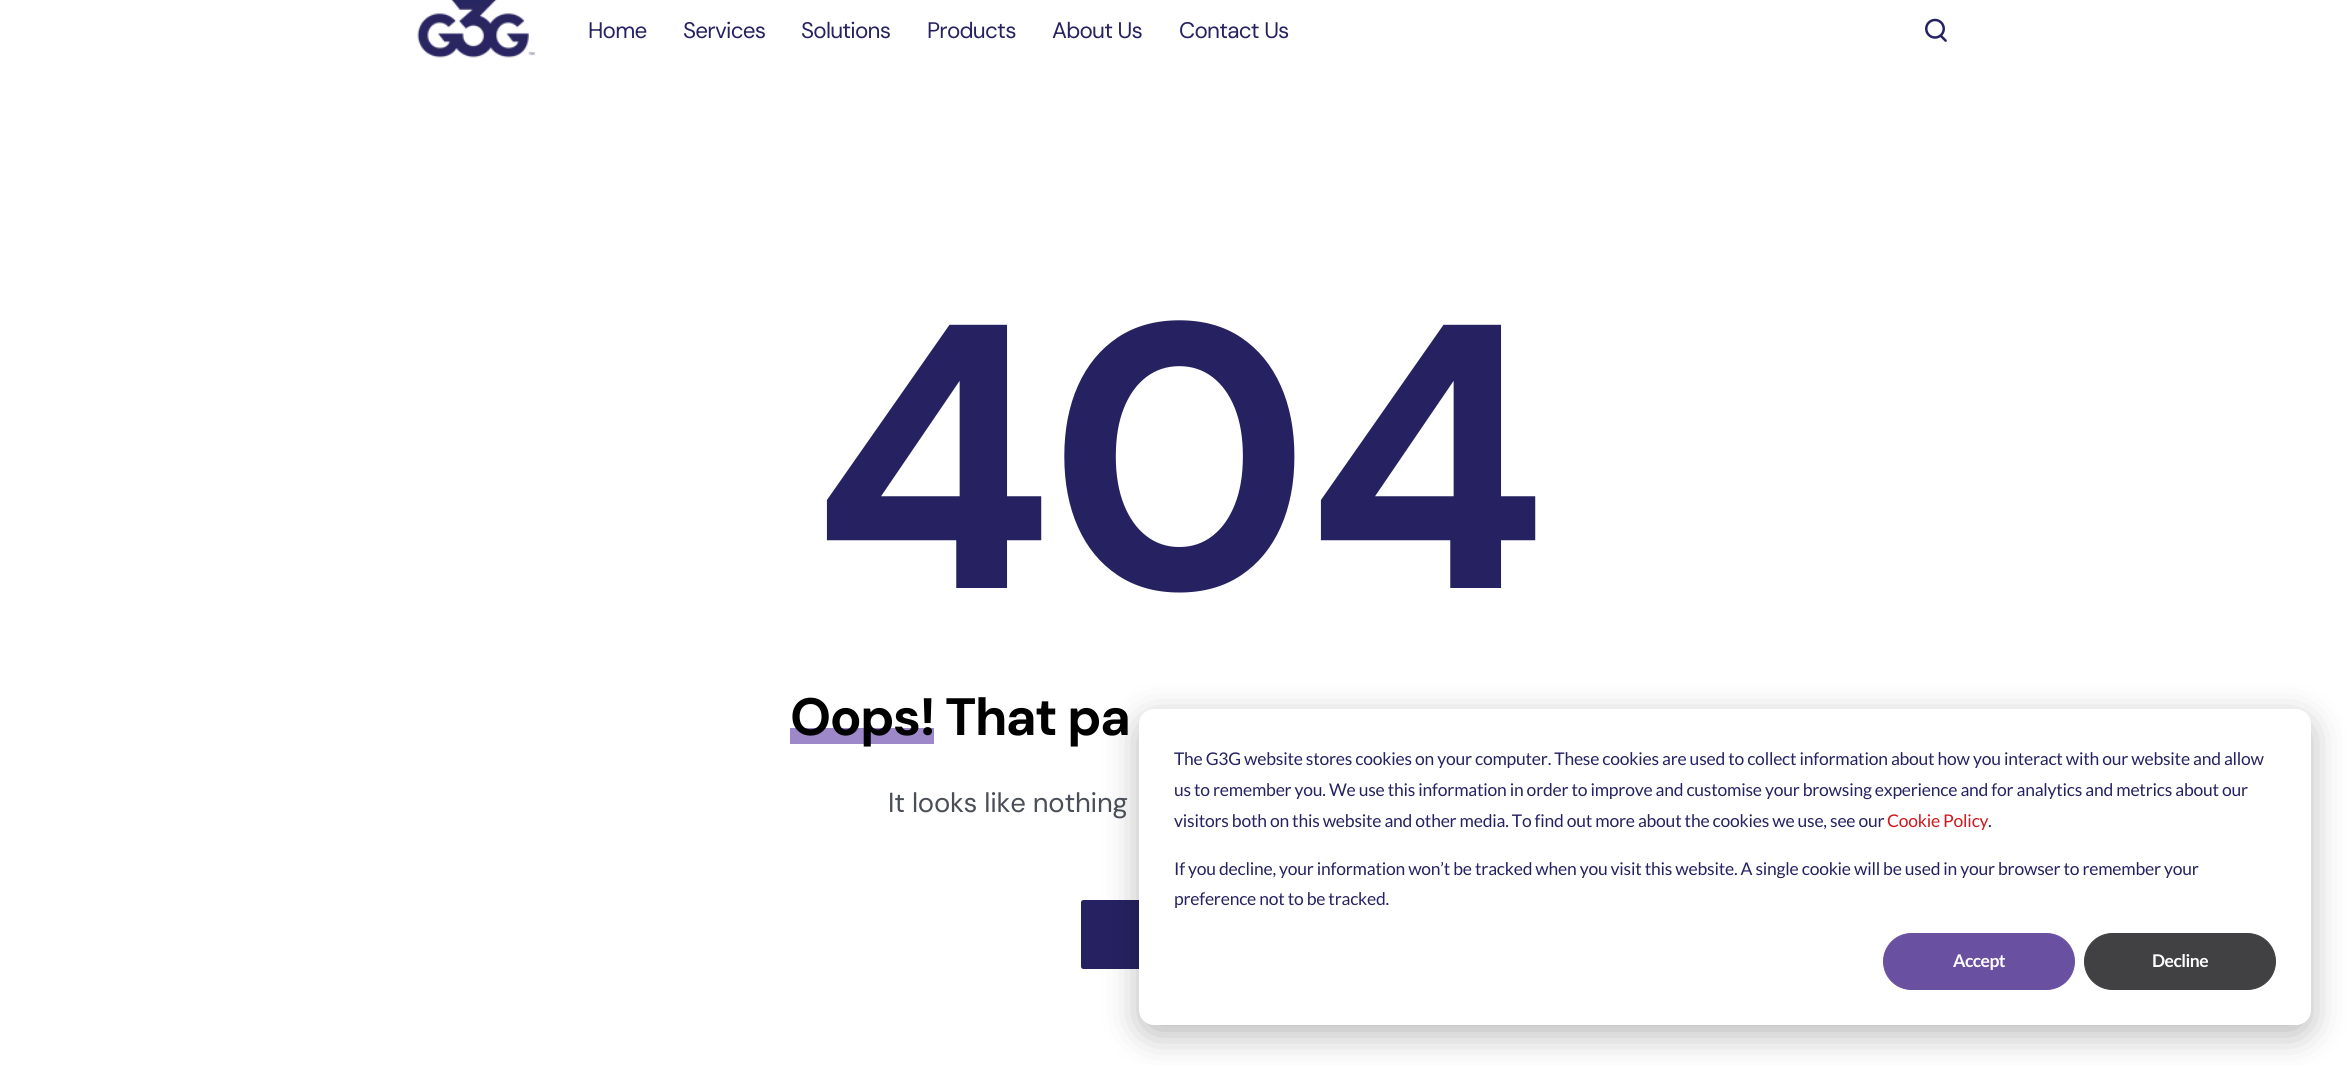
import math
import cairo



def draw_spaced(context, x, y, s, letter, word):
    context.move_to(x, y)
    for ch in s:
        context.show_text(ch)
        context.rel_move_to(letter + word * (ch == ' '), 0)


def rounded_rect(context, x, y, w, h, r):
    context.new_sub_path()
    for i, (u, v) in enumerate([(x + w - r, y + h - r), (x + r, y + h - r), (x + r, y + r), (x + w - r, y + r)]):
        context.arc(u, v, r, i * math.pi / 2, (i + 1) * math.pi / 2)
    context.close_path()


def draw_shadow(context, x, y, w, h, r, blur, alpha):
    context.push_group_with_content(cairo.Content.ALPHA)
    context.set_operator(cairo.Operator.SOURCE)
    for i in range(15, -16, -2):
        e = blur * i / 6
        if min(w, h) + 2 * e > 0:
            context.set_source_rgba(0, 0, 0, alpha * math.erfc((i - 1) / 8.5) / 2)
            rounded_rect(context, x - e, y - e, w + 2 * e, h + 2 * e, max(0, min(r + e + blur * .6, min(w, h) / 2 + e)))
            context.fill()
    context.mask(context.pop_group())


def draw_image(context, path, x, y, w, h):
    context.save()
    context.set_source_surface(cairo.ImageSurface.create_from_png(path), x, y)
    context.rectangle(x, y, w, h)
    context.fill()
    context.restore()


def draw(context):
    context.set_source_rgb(1, 1, 1)
    context.paint()
    draw_image(context, "images/1.png", 417, 0, 119, 58)
    draw_image(context, "images/2.png", 1925, 18, 22, 24)
    context.set_source_rgb(157 / 255, 136 / 255, 201 / 255)
    context.rectangle(790, 728, 144, 16)
    context.fill()
    context.set_source_rgb(38 / 255, 34 / 255, 98 / 255)
    rounded_rect(context, 1082.5, 901.5, 186, 66, 1)
    context.fill_preserve()
    context.set_line_width(3)
    context.stroke()
    context.set_source_rgb(0, 0, 0)
    draw_shadow(context, 1139, 719, 1172, 316, 15, 17.5, 0.28)
    context.set_source_rgb(1, 1, 1)
    rounded_rect(context, 1139, 709, 1172, 316, 15)
    context.fill()
    context.set_source_rgb(105 / 255, 80 / 255, 161 / 255)
    rounded_rect(context, 1883.5, 933.5, 191, 56, 28)
    context.fill_preserve()
    context.set_line_width(1)
    context.stroke()
    context.set_source_rgb(65 / 255, 64 / 255, 66 / 255)
    rounded_rect(context, 2084.5, 933.5, 191, 56, 28)
    context.fill_preserve()
    context.stroke()
    context.select_font_face("DM Sans")
    context.set_font_size(22.5)
    context.set_source_rgb(38 / 255, 34 / 255, 98 / 255)
    draw_spaced(context, 588, 38, "Home", -0.75, 0)
    draw_spaced(context, 683, 38, "Services", -0.75, 0)
    draw_spaced(context, 801, 38, "Solutions", -0.75, 0)
    draw_spaced(context, 927, 38, "Products", -0.75, 0)
    draw_spaced(context, 1052, 38, "About Us", -0.75, 0)
    draw_spaced(context, 1179, 38, "Contact Us", -0.75, 0)
    context.select_font_face("DM Sans", cairo.FontSlant.NORMAL, cairo.FontWeight.BOLD)
    context.set_font_size(376)
    draw_spaced(context, 810, 588, "404", -7.5, 0)
    context.set_font_size(52.5)
    context.set_source_rgb(0, 0, 0)
    draw_spaced(context, 790, 735, "Oops! That pa", -1.5, 0)
    context.select_font_face("DM Sans")
    context.set_font_size(27.5)
    context.set_source_rgb(74 / 255, 78 / 255, 87 / 255)
    draw_spaced(context, 888, 812, "It looks like nothing", -0.22, 0)
    context.select_font_face("Lato")
    context.set_font_size(17.5)
    context.set_source_rgb(38 / 255, 34 / 255, 98 / 255)
    draw_spaced(context, 1174, 765, "The G3G website stores cookies on your computer. These cookies are used to collect information about how you interact with our website and allow", -0.22, 0)
    draw_spaced(context, 1174, 796, "us to remember you. We use this information in order to improve and customise your browsing experience and for analytics and metrics about our", -0.22, 0)
    draw_spaced(context, 1174, 827, "visitors both on this website and other media. To find out more about the cookies we use, see our", -0.22, 0)
    context.set_source_rgb(206 / 255, 24 / 255, 30 / 255)
    draw_spaced(context, 1887, 827, "Cookie Policy", -0.22, 0)
    context.set_source_rgb(38 / 255, 34 / 255, 98 / 255)
    draw_spaced(context, 1988, 827, ".", -0.22, 0)
    draw_spaced(context, 1174, 875, "If you decline, your information won’t be tracked when you visit this website. A single cookie will be used in your browser to remember your", -0.22, 0)
    draw_spaced(context, 1174, 905, "preference not to be tracked.", -0.22, 0)
    context.select_font_face("Lato", cairo.FontSlant.NORMAL, cairo.FontWeight.BOLD)
    context.set_source_rgb(1, 1, 1)
    draw_spaced(context, 1953, 967, "Accept", -0.5, 0)
    draw_spaced(context, 2152, 967, "Decline", -0.5, 0)


surface = cairo.ImageSurface(cairo.Format.RGB24, 2351, 1065)
context = cairo.Context(surface)
options = cairo.FontOptions()
options.set_hint_metrics(cairo.HintMetrics.OFF)
options.set_hint_style(cairo.HintStyle.NONE)
context.set_font_options(options)
context.set_miter_limit(4)
draw(context)
surface.write_to_png("out.png")
